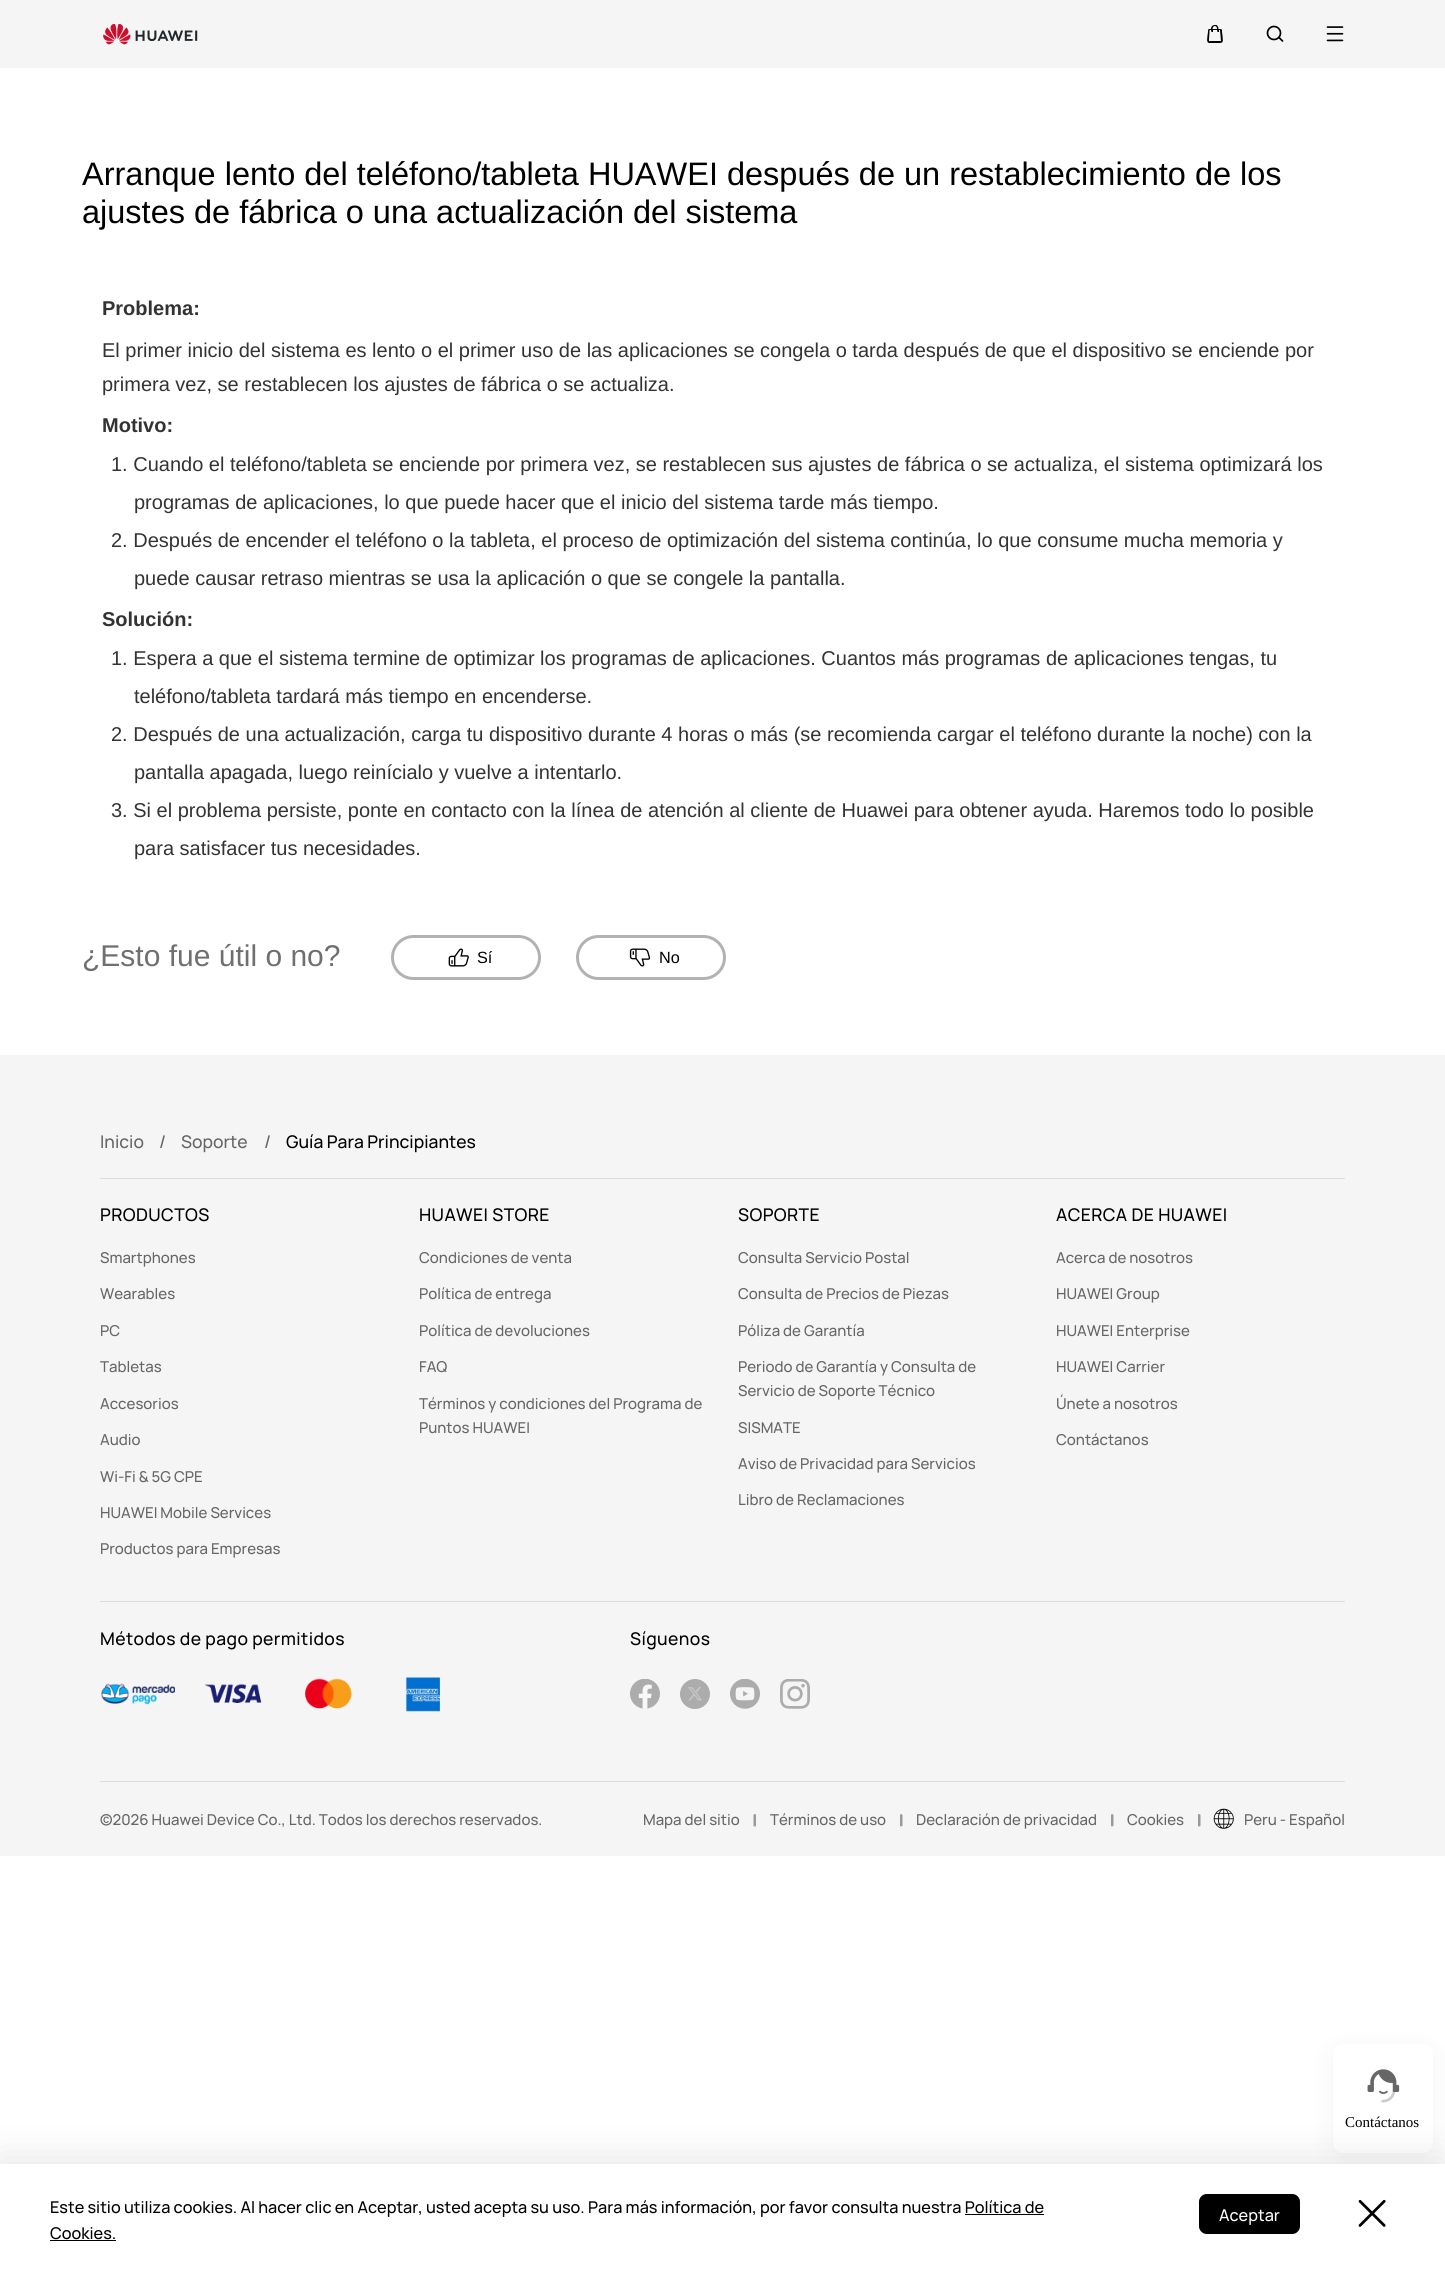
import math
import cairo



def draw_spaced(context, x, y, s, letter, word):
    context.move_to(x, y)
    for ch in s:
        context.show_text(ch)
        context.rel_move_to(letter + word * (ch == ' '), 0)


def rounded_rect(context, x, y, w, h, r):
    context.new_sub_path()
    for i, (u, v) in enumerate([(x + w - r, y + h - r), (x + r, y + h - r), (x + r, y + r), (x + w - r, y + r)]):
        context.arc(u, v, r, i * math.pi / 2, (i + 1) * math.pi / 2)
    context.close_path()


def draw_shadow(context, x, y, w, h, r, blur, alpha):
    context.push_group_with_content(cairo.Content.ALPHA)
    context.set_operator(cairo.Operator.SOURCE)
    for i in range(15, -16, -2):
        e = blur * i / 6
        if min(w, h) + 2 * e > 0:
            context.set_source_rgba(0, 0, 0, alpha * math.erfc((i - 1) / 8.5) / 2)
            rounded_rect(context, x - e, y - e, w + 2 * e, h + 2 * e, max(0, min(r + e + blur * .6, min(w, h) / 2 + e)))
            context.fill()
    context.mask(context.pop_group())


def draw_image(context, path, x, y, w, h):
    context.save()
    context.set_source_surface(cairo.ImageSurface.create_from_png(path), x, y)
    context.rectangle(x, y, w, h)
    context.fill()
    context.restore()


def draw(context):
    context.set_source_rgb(1, 1, 1)
    context.paint()
    context.set_source_rgb(245 / 255, 245 / 255, 245 / 255)
    context.rectangle(0, 0, 1445, 68)
    context.fill()
    draw_image(context, "images/1.png", 103, 24, 95, 21)
    context.set_source_rgb(0, 0, 0)
    context.set_fill_rule(cairo.FillRule.EVEN_ODD)
    context.new_path()
    context.move_to(1215, 25)
    context.curve_to(1212.5, 25, 1211, 26.5, 1211, 29)
    context.curve_to(1208, 29, 1208, 29, 1208, 32)
    context.line_to(1207.5, 35.5)
    context.curve_to(1207.5, 37, 1206, 42.5, 1209, 43)
    context.line_to(1219, 43)
    context.curve_to(1224.5, 43, 1222.5, 40.5, 1222.5, 35.5)
    context.line_to(1222, 32)
    context.curve_to(1222, 29, 1222, 29, 1218.5, 29)
    context.curve_to(1218.5, 26.5, 1217, 24.5, 1215, 25)
    context.close_path()
    context.move_to(1215, 26)
    context.curve_to(1216.5, 26, 1217, 27.5, 1217, 29)
    context.line_to(1212.5, 29)
    context.curve_to(1212.5, 27.5, 1213.5, 26, 1215, 26)
    context.close_path()
    context.move_to(1220, 30)
    context.line_to(1221, 41)
    context.line_to(1211, 41)
    context.curve_to(1208.5, 41, 1209, 42, 1209, 39)
    context.line_to(1209.5, 32)
    context.curve_to(1209.5, 30, 1209, 30, 1211, 30)
    context.line_to(1211.5, 32)
    context.line_to(1213, 32)
    context.line_to(1213, 30)
    context.line_to(1217, 30)
    context.line_to(1217.5, 32)
    context.line_to(1219, 32)
    context.line_to(1219, 30)
    context.close_path()
    context.fill()
    context.arc(1274, 33, 6.5, 0, 2 * math.pi)
    context.set_line_width(1.7)
    context.stroke()
    context.new_path()
    context.move_to(1282.5, 41)
    context.line_to(1279, 37.5)
    context.set_line_cap(cairo.LineCap.ROUND)
    context.set_line_join(cairo.LineJoin.ROUND)
    context.stroke()
    draw_image(context, "images/2.png", 1326, 26, 18, 16)
    rounded_rect(context, 392.5, 936.5, 147, 42, 21)
    context.set_source_rgb(178 / 255, 178 / 255, 178 / 255)
    context.set_line_width(3)
    context.set_line_cap(cairo.LineCap.BUTT)
    context.set_line_join(cairo.LineJoin.MITER)
    context.stroke()
    draw_image(context, "images/3.png", 448, 948, 21, 19)
    rounded_rect(context, 577.5, 936.5, 147, 42, 21)
    context.stroke()
    draw_image(context, "images/4.png", 629, 948, 22, 19)
    context.set_source_rgb(245 / 255, 245 / 255, 245 / 255)
    context.rectangle(0, 1055, 1445, 801)
    context.fill()
    context.set_source_rgb(221 / 255, 221 / 255, 221 / 255)
    context.rectangle(100, 1178, 1245, 1)
    context.fill()
    context.rectangle(100, 1601, 1245, 1)
    context.fill()
    context.rectangle(100, 1781, 1245, 1)
    context.fill()
    draw_image(context, "images/5.png", 101, 1683, 74, 22)
    draw_image(context, "images/6.png", 205, 1683, 57, 20)
    draw_image(context, "images/7.png", 305, 1678, 47, 31)
    draw_image(context, "images/8.png", 405, 1677, 35, 35)
    draw_image(context, "images/9.png", 630, 1679, 30, 30)
    draw_image(context, "images/10.png", 680, 1679, 30, 30)
    draw_image(context, "images/11.png", 730, 1679, 30, 30)
    draw_image(context, "images/12.png", 780, 1679, 30, 30)
    context.set_source_rgb(153 / 255, 153 / 255, 153 / 255)
    context.set_fill_rule(cairo.FillRule.WINDING)
    context.new_path()
    context.move_to(756, 1815.5)
    context.line_to(756, 1825.5)
    context.curve_to(756, 1826, 755.5, 1826.5, 755, 1826.5)
    context.curve_to(754, 1826.5, 753.5, 1826, 753.5, 1825.5)
    context.line_to(753.5, 1815.5)
    context.curve_to(753.5, 1814.5, 754, 1814, 755, 1814)
    context.curve_to(755.5, 1814, 756, 1814.5, 756, 1815.5)
    context.close_path()
    context.fill()
    context.new_path()
    context.move_to(902.5, 1815.5)
    context.line_to(902.5, 1825.5)
    context.curve_to(902.5, 1826, 901.5, 1826.5, 901, 1826.5)
    context.curve_to(900.5, 1826.5, 900, 1826, 900, 1825.5)
    context.line_to(900, 1815.5)
    context.curve_to(900, 1814.5, 900.5, 1814, 901, 1814)
    context.curve_to(901.5, 1814, 902.5, 1814.5, 902.5, 1815.5)
    context.close_path()
    context.fill()
    context.new_path()
    context.move_to(1113.5, 1815.5)
    context.line_to(1113.5, 1825.5)
    context.curve_to(1113.5, 1826, 1112.5, 1826.5, 1112, 1826.5)
    context.curve_to(1111.5, 1826.5, 1111, 1826, 1111, 1825.5)
    context.line_to(1111, 1815.5)
    context.curve_to(1111, 1814.5, 1111.5, 1814, 1112, 1814)
    context.curve_to(1112.5, 1814, 1113.5, 1814.5, 1113.5, 1815.5)
    context.close_path()
    context.fill()
    context.new_path()
    context.move_to(1200.5, 1815.5)
    context.line_to(1200.5, 1825.5)
    context.curve_to(1200.5, 1826, 1200, 1826.5, 1199, 1826.5)
    context.curve_to(1198.5, 1826.5, 1198, 1826, 1198, 1825.5)
    context.line_to(1198, 1815.5)
    context.curve_to(1198, 1814.5, 1198.5, 1814, 1199, 1814)
    context.curve_to(1200, 1814, 1200.5, 1814.5, 1200.5, 1815.5)
    context.close_path()
    context.fill()
    draw_image(context, "images/13.png", 1213, 1808, 21, 21)
    context.set_source_rgb(0, 0, 0)
    draw_shadow(context, 1333, 2050, 100, 109, 10, 12.5, 0.05)
    context.set_source_rgb(1, 1, 1)
    rounded_rect(context, 1333, 2044, 100, 109, 10)
    context.fill()
    draw_image(context, "images/14.png", 1367, 2069, 33, 34)
    context.set_source_rgb(0, 0, 0)
    draw_shadow(context, 0, 2159, 1445, 112, 0, 19, 0.1)
    context.set_source_rgb(1, 1, 1)
    context.rectangle(0, 2164, 1445, 112)
    context.fill()
    context.set_source_rgb(0, 0, 0)
    context.rectangle(965, 2214, 79, 1)
    context.fill()
    context.rectangle(50, 2240, 66, 1)
    context.fill()
    rounded_rect(context, 1199, 2194, 101, 40, 8)
    context.fill()
    rounded_rect(context, 1199.5, 2194.5, 100, 39, 7.5)
    context.set_source_rgba(0, 0, 0, 0.3)
    context.set_line_width(1)
    context.stroke()
    draw_image(context, "images/15.png", 1358, 2199, 28, 28)
    context.select_font_face("Liberation Sans")
    context.set_font_size(32.5)
    context.set_source_rgb(0, 0, 0)
    context.move_to(82, 185)
    context.show_text("Arranque lento del teléfono/tableta HUAWEI después de un restablecimiento de los")
    context.move_to(82, 223)
    context.show_text("ajustes de fábrica o una actualización del sistema")
    context.select_font_face("Liberation Sans", cairo.FontSlant.NORMAL, cairo.FontWeight.BOLD)
    context.set_font_size(20)
    context.set_source_rgb(51 / 255, 51 / 255, 51 / 255)
    context.move_to(102, 315)
    context.show_text("Problema:")
    context.select_font_face("Liberation Sans")
    context.move_to(102, 357)
    context.show_text("El primer inicio del sistema es lento o el primer uso de las aplicaciones se congela o tarda después de que el dispositivo se enciende por")
    context.move_to(102, 391)
    context.show_text("primera vez, se restablecen los ajustes de fábrica o se actualiza.")
    context.select_font_face("Liberation Sans", cairo.FontSlant.NORMAL, cairo.FontWeight.BOLD)
    context.move_to(102, 432)
    context.show_text("Motivo:")
    context.select_font_face("Liberation Sans")
    context.move_to(111, 471)
    context.show_text("1. Cuando el teléfono/tableta se enciende por primera vez, se restablecen sus ajustes de fábrica o se actualiza, el sistema optimizará los")
    context.move_to(134, 509)
    context.show_text("programas de aplicaciones, lo que puede hacer que el inicio del sistema tarde más tiempo.")
    context.move_to(111, 547)
    context.show_text("2. Después de encender el teléfono o la tableta, el proceso de optimización del sistema continúa, lo que consume mucha memoria y")
    context.move_to(134, 585)
    context.show_text("puede causar retraso mientras se usa la aplicación o que se congele la pantalla.")
    context.select_font_face("Liberation Sans", cairo.FontSlant.NORMAL, cairo.FontWeight.BOLD)
    context.move_to(102, 626)
    context.show_text("Solución:")
    context.select_font_face("Liberation Sans")
    context.move_to(111, 665)
    context.show_text("1. Espera a que el sistema termine de optimizar los programas de aplicaciones. Cuantos más programas de aplicaciones tengas, tu")
    context.move_to(134, 703)
    context.show_text("teléfono/tableta tardará más tiempo en encenderse.")
    context.move_to(111, 741)
    context.show_text("2. Después de una actualización, carga tu dispositivo durante 4 horas o más (se recomienda cargar el teléfono durante la noche) con la")
    context.move_to(134, 779)
    context.show_text("pantalla apagada, luego reinícialo y vuelve a intentarlo.")
    context.move_to(111, 817)
    context.show_text("3. Si el problema persiste, ponte en contacto con la línea de atención al cliente de Huawei para obtener ayuda. Haremos todo lo posible")
    context.move_to(134, 855)
    context.show_text("para satisfacer tus necesidades.")
    context.set_font_size(30)
    context.set_source_rgb(111 / 255, 111 / 255, 111 / 255)
    context.move_to(82, 966)
    context.show_text("¿Esto fue útil o no?")
    context.set_font_size(16.25)
    context.set_source_rgb(0, 0, 0)
    context.move_to(477, 963)
    context.show_text("Sí")
    context.move_to(659, 963)
    context.show_text("No")
    context.select_font_face("Manrope Medium")
    context.set_font_size(17.5)
    context.set_source_rgb(102 / 255, 102 / 255, 102 / 255)
    context.move_to(100, 1148)
    context.show_text("Inicio")
    context.move_to(159, 1148)
    context.show_text("/")
    context.move_to(181, 1148)
    context.show_text("Soporte")
    context.move_to(264, 1148)
    context.show_text("/")
    context.set_source_rgb(0, 0, 0)
    context.move_to(286, 1148)
    context.show_text("Guía Para Principiantes")
    draw_spaced(context, 100, 1221, "PRODUCTOS", 0.4, 0)
    context.set_font_size(15)
    context.set_source_rgb(102 / 255, 102 / 255, 102 / 255)
    context.move_to(100, 1263)
    context.show_text("Smartphones")
    context.move_to(100, 1299)
    context.show_text("Wearables")
    context.move_to(100, 1336)
    context.show_text("PC")
    context.move_to(100, 1372)
    context.show_text("Tabletas")
    context.move_to(100, 1409)
    context.show_text("Accesorios")
    context.move_to(100, 1445)
    context.show_text("Audio")
    context.move_to(100, 1482)
    context.show_text("Wi-Fi & 5G CPE")
    context.move_to(100, 1518)
    context.show_text("HUAWEI Mobile Services")
    context.move_to(100, 1554)
    context.show_text("Productos para Empresas")
    context.set_font_size(17.5)
    context.set_source_rgb(0, 0, 0)
    draw_spaced(context, 419, 1221, "HUAWEI STORE", 0.4, 0)
    context.set_font_size(15)
    context.set_source_rgb(102 / 255, 102 / 255, 102 / 255)
    context.move_to(419, 1263)
    context.show_text("Condiciones de venta")
    context.move_to(419, 1299)
    context.show_text("Política de entrega")
    context.move_to(419, 1336)
    context.show_text("Política de devoluciones")
    context.move_to(419, 1372)
    context.show_text("FAQ")
    context.move_to(419, 1409)
    context.show_text("Términos y condiciones del Programa de")
    context.move_to(419, 1433)
    context.show_text("Puntos HUAWEI")
    context.set_font_size(17.5)
    context.set_source_rgb(0, 0, 0)
    draw_spaced(context, 738, 1221, "SOPORTE", 0.4, 0)
    context.set_font_size(15)
    context.set_source_rgb(102 / 255, 102 / 255, 102 / 255)
    context.move_to(738, 1263)
    context.show_text("Consulta Servicio Postal")
    context.move_to(738, 1299)
    context.show_text("Consulta de Precios de Piezas")
    context.move_to(738, 1336)
    context.show_text("Póliza de Garantía")
    context.move_to(738, 1372)
    context.show_text("Periodo de Garantía y Consulta de")
    context.move_to(738, 1396)
    context.show_text("Servicio de Soporte Técnico")
    context.move_to(738, 1433)
    context.show_text("SISMATE")
    context.move_to(738, 1469)
    context.show_text("Aviso de Privacidad para Servicios")
    context.move_to(738, 1505)
    context.show_text("Libro de Reclamaciones")
    context.set_font_size(17.5)
    context.set_source_rgb(0, 0, 0)
    draw_spaced(context, 1056, 1221, "ACERCA DE HUAWEI", 0.4, 0)
    context.set_font_size(15)
    context.set_source_rgb(102 / 255, 102 / 255, 102 / 255)
    context.move_to(1056, 1263)
    context.show_text("Acerca de nosotros")
    context.move_to(1056, 1299)
    context.show_text("HUAWEI Group")
    context.move_to(1056, 1336)
    context.show_text("HUAWEI Enterprise")
    context.move_to(1056, 1372)
    context.show_text("HUAWEI Carrier")
    context.move_to(1056, 1409)
    context.show_text("Únete a nosotros")
    context.move_to(1056, 1445)
    context.show_text("Contáctanos")
    context.set_font_size(17.5)
    context.set_source_rgb(0, 0, 0)
    draw_spaced(context, 100, 1645, "Métodos de pago permitidos", 0.4, 0)
    draw_spaced(context, 630, 1645, "Síguenos", 0.4, 0)
    context.set_font_size(15)
    context.set_source_rgb(102 / 255, 102 / 255, 102 / 255)
    context.move_to(100, 1825)
    context.show_text("©2026 Huawei Device Co., Ltd. Todos los derechos reservados.")
    context.move_to(643, 1825)
    context.show_text("Mapa del sitio")
    context.move_to(770, 1825)
    context.show_text("Términos de uso")
    context.move_to(916, 1825)
    context.show_text("Declaración de privacidad")
    context.move_to(1127, 1825)
    context.show_text("Cookies")
    context.move_to(1244, 1825)
    context.show_text("Peru - Español")
    context.select_font_face("Liberation Serif")
    context.set_source_rgb(0, 0, 0)
    context.move_to(1345, 2127)
    context.show_text("Contáctanos")
    context.select_font_face("Manrope Medium")
    context.set_font_size(16.25)
    context.move_to(50, 2213)
    context.show_text("Este sitio utiliza cookies. Al hacer clic en Aceptar, usted acepta su uso. Para más información, por favor consulta nuestra Política de")
    context.move_to(50, 2239)
    context.show_text("Cookies.")
    context.set_source_rgb(1, 1, 1)
    context.move_to(1219, 2221)
    context.show_text("Aceptar")


surface = cairo.ImageSurface(cairo.Format.RGB24, 1445, 2276)
context = cairo.Context(surface)
options = cairo.FontOptions()
options.set_hint_metrics(cairo.HintMetrics.OFF)
options.set_hint_style(cairo.HintStyle.NONE)
context.set_font_options(options)
context.set_miter_limit(4)
draw(context)
surface.write_to_png("out.png")
